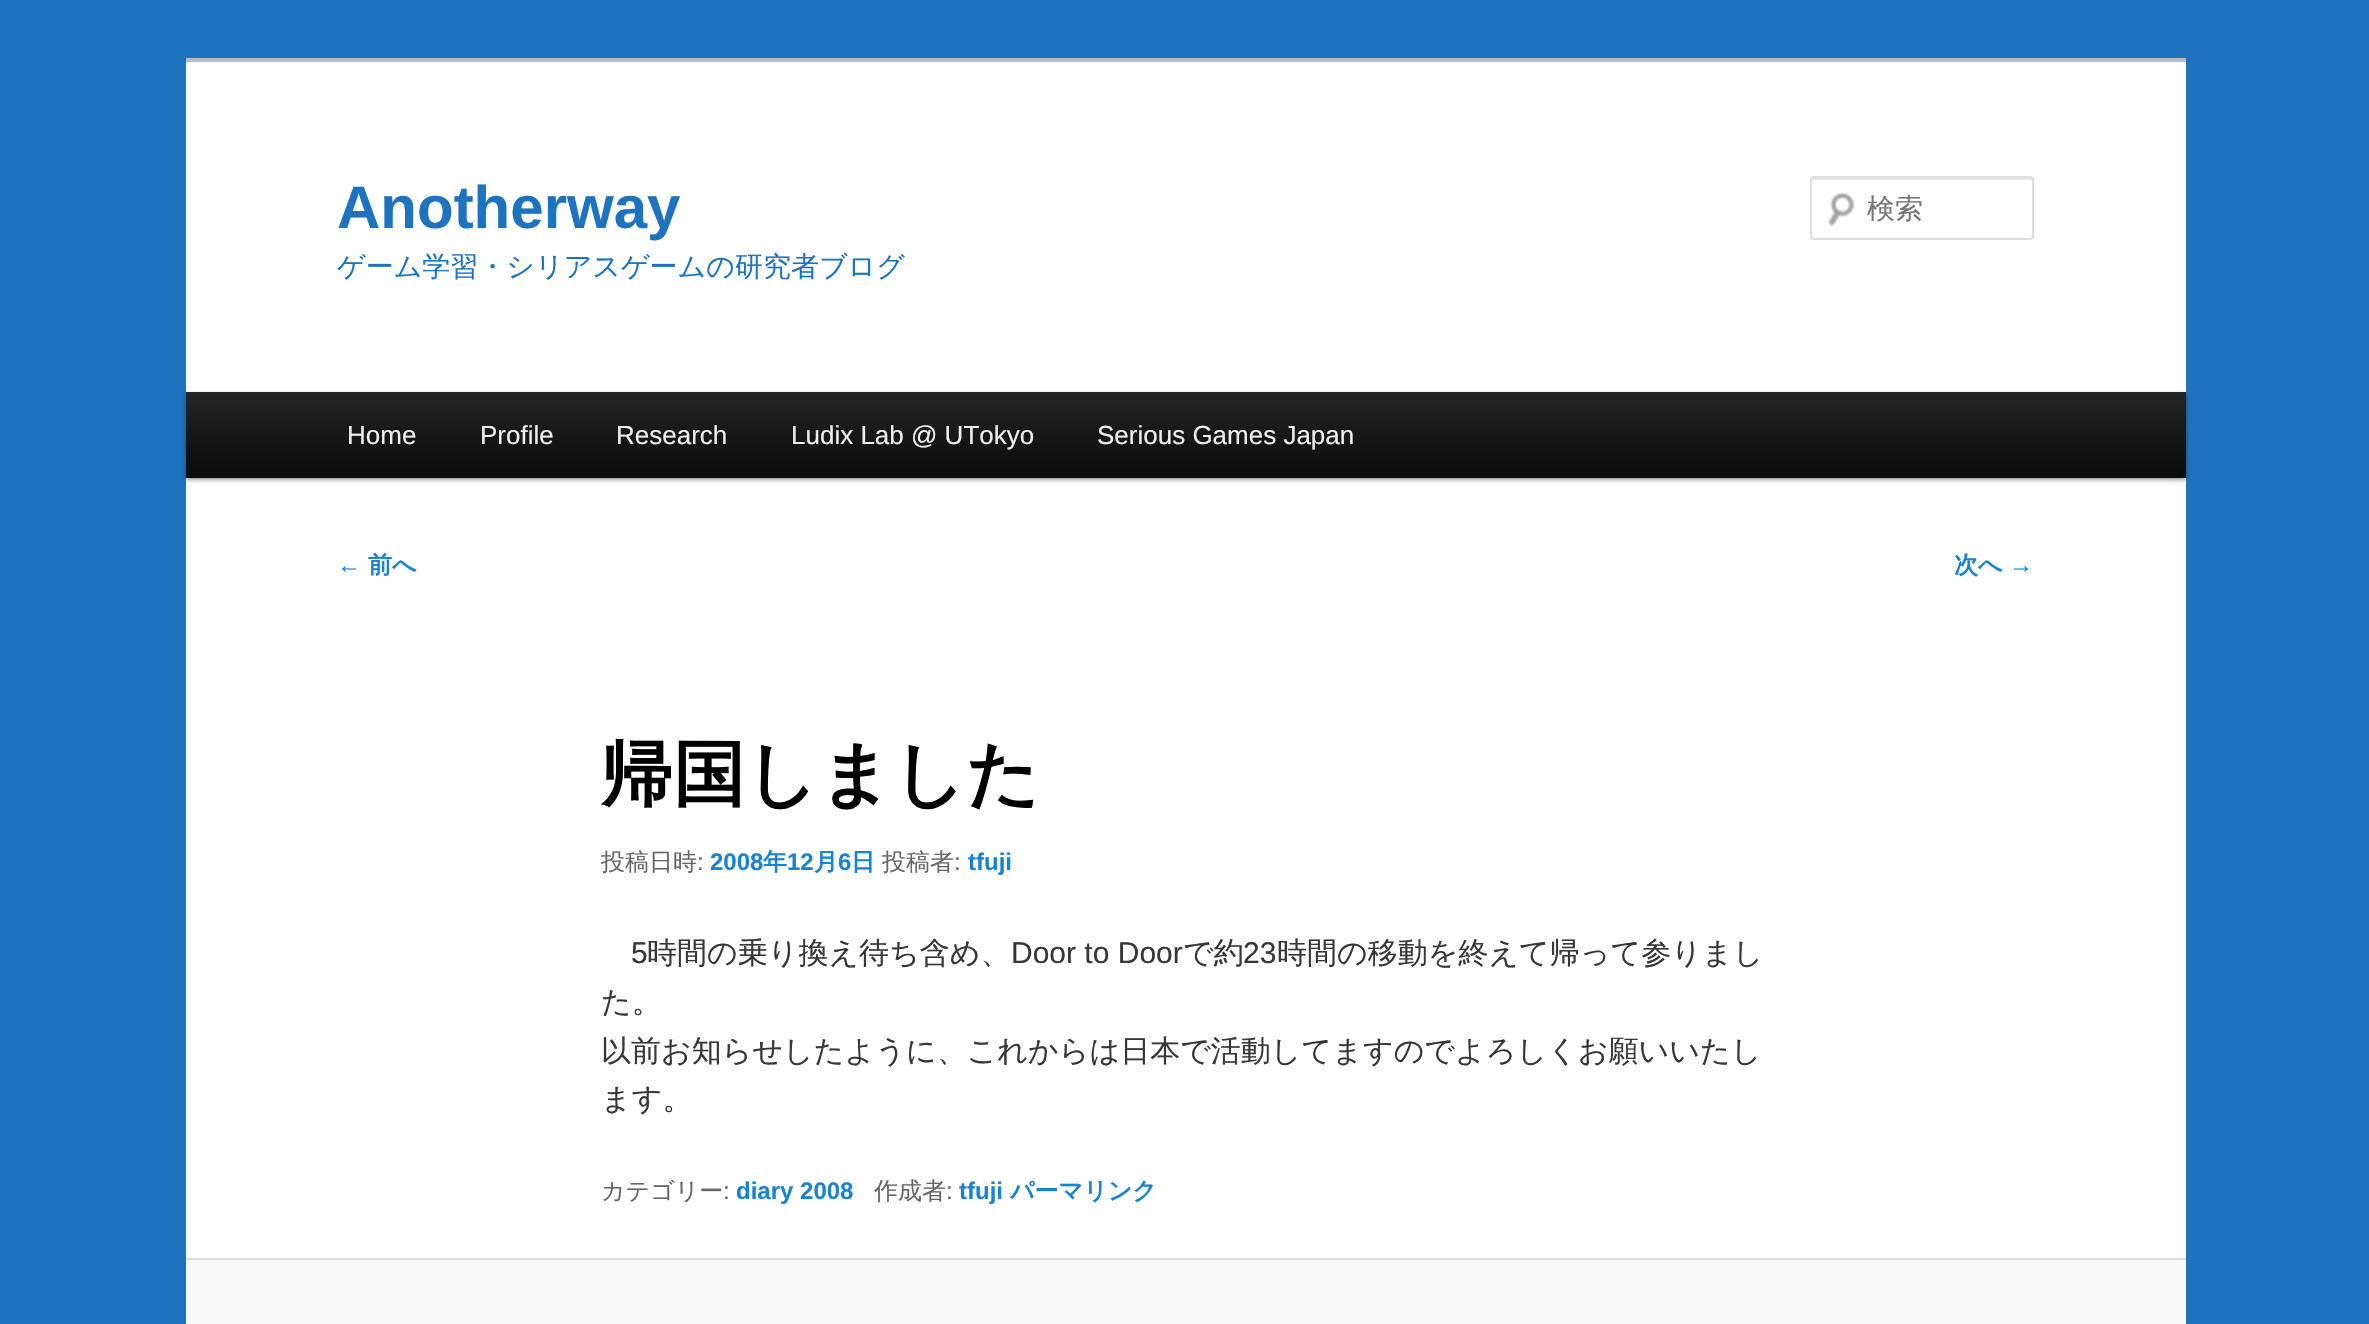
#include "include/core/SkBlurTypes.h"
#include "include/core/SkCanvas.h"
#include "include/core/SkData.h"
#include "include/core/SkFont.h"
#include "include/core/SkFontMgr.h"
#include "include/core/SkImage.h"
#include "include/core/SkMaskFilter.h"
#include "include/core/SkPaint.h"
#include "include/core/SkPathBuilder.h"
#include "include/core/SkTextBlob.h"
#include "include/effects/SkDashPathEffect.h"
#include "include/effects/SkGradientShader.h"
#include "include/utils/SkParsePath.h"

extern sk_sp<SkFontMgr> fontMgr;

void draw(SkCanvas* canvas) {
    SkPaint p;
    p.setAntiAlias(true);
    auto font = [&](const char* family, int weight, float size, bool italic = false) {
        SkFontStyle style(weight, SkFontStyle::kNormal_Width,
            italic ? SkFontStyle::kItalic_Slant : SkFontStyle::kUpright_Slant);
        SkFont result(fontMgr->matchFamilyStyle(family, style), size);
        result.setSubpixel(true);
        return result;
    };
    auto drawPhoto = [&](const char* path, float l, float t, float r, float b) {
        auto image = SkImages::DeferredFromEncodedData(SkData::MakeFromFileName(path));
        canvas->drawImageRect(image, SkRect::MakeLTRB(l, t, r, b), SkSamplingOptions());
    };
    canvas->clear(0xFF1E73BE);
    p.setColor(0xFFFFFFFF);
    canvas->drawRect(SkRect::MakeLTRB(186, 62, 2186, 1258), p);
    p.setColor(0xFFBBBBBB);
    canvas->drawRect(SkRect::MakeLTRB(186, 58, 2186, 62), p);
    auto font1 = font("Liberation Sans", 700, 60);
    p.setColor(0xFF1E73BE);
    canvas->drawString("Anotherway", 337, 228, font1, p);
    auto font2 = font("WenQuanYi Zen Hei", 500, 28);
    canvas->drawString("ゲーム学習・シリアスゲームの研究者ブログ", 337, 276, font2, p);
    drawPhoto("media/1.png", 1827, 192, 1855, 227);
    p.setColor(0xFFE6E6E6);
    canvas->drawPath(SkPathBuilder().moveTo(1814, 180).lineTo(2030, 180).cubicTo(2031, 180, 2032, 181, 2032, 182).lineTo(2032, 180).cubicTo(2032, 179, 2031, 178, 2030, 178).lineTo(1814, 178).cubicTo(1813, 178, 1812, 179, 1812, 180).lineTo(1812, 182).cubicTo(1812, 181, 1813, 180, 1814, 180).close().detach(), p);
    p.setStyle(SkPaint::kStroke_Style);
    p.setStrokeWidth(2);
    p.setColor(0xFFDDDDDD);
    canvas->drawRoundRect(SkRect::MakeLTRB(1811, 177, 2033, 239), 3, 3, p);
    p.setStyle(SkPaint::kFill_Style);
    p.setColor(0xFF757575);
    canvas->drawString("検索", 1867, 218, font2, p);
    p.setColor(0x66000000);
    p.setMaskFilter(SkMaskFilter::MakeBlur(kNormal_SkBlurStyle, 2));
    canvas->drawRect(SkRect::MakeLTRB(186, 394, 2186, 480), p);
    p.setMaskFilter(nullptr);
    {
        const SkColor colors[] = {0xFF252525, 0xFF0A0A0A};
        const float stops[] = {0, 1};
        const SkPoint ends[] = {{1186, 392}, {1186, 478}};
        p.setShader(SkGradientShader::MakeLinear(ends, colors, stops, 2, SkTileMode::kClamp));
        p.setAlpha(255);
    }
    canvas->drawRect(SkRect::MakeLTRB(186, 392, 2186, 478), p);
    auto font3 = font("Liberation Sans", 400, 26);
    p.setShader(nullptr);
    p.setColor(0xFFEEEEEE);
    {
        const struct { const char* s; float x, y; } items[] = {
            {"Home", 347, 444},
            {"Profile", 480, 444},
            {"Research", 616, 444},
            {"Ludix Lab @ UTokyo", 791, 444},
            {"Serious Games Japan", 1097, 444},
        };
        for (auto [s, x, y] : items) {
            canvas->drawString(s, x, y, font3, p);
        }
    }
    auto font4 = font("Liberation Sans", 400, 24);
    p.setColor(0xFF1982D1);
    canvas->drawString("←", 337, 573, font4, p);
    auto font5 = font("WenQuanYi Zen Hei", 700, 24);
    canvas->drawString("前へ", 368, 573, font5, p);
    canvas->drawString("次へ", 1954, 573, font5, p);
    canvas->drawString("→", 2009, 573, font4, p);
    auto font6 = font("WenQuanYi Zen Hei", 700, 72);
    p.setColor(0xFF000000);
    canvas->drawString("帰国しました", 601, 799, font6, p);
    auto font7 = font("WenQuanYi Zen Hei", 500, 24);
    p.setColor(0xFF666666);
    canvas->drawString("投稿日時", 601, 870, font7, p);
    canvas->drawString(":", 697, 870, font4, p);
    auto font8 = font("Liberation Sans", 700, 24);
    p.setColor(0xFF1982D1);
    canvas->drawString("2008", 710, 870, font8, p);
    canvas->drawString("年", 763, 870, font5, p);
    canvas->drawString("12", 787, 870, font8, p);
    canvas->drawString("月", 814, 870, font5, p);
    canvas->drawString("6", 838, 870, font8, p);
    canvas->drawString("日", 851, 870, font5, p);
    p.setColor(0xFF666666);
    canvas->drawString("投稿者", 882, 870, font7, p);
    canvas->drawString(":", 954, 870, font4, p);
    p.setColor(0xFF1982D1);
    canvas->drawString("tfuji", 968, 870, font8, p);
    auto font9 = font("Liberation Sans", 400, 30);
    p.setColor(0xFF373737);
    canvas->drawString("5", 631, 963, font9, p);
    auto font10 = font("WenQuanYi Zen Hei", 500, 30);
    canvas->drawString("時間の乗り換え待ち含め、", 647, 963, font10, p);
    canvas->drawString("Door to Door", 1011, 963, font9, p);
    canvas->drawString("で約", 1183, 963, font10, p);
    canvas->drawString("23", 1243, 963, font9, p);
    {
        const struct { const char* s; float x, y; } items[] = {
            {"時間の移動を終えて帰って参りまし", 1277, 963},
            {"た。", 601, 1012},
            {"以前お知らせしたように、これからは日本で活動してますのでよろしくお願いいたし", 601, 1061},
            {"ます。", 601, 1109},
        };
        for (auto [s, x, y] : items) {
            canvas->drawString(s, x, y, font10, p);
        }
    }
    p.setColor(0xFF666666);
    canvas->drawString("カテゴリー", 601, 1199, font7, p);
    canvas->drawString(":", 723, 1199, font4, p);
    p.setColor(0xFF1982D1);
    canvas->drawString("diary 2008", 736, 1199, font8, p);
    p.setColor(0xFF666666);
    canvas->drawString("作成者", 874, 1199, font7, p);
    canvas->drawString(":", 946, 1199, font4, p);
    p.setColor(0xFF1982D1);
    canvas->drawString("tfuji", 959, 1199, font8, p);
    canvas->drawString("パーマリンク", 1010, 1199, font5, p);
    p.setColor(0xFFF9F9F9);
    canvas->drawRect(SkRect::MakeLTRB(186, 1260, 2186, 1324), p);
    p.setColor(0xFFDDDDDD);
    canvas->drawRect(SkRect::MakeLTRB(186, 1258, 2186, 1260), p);
}
